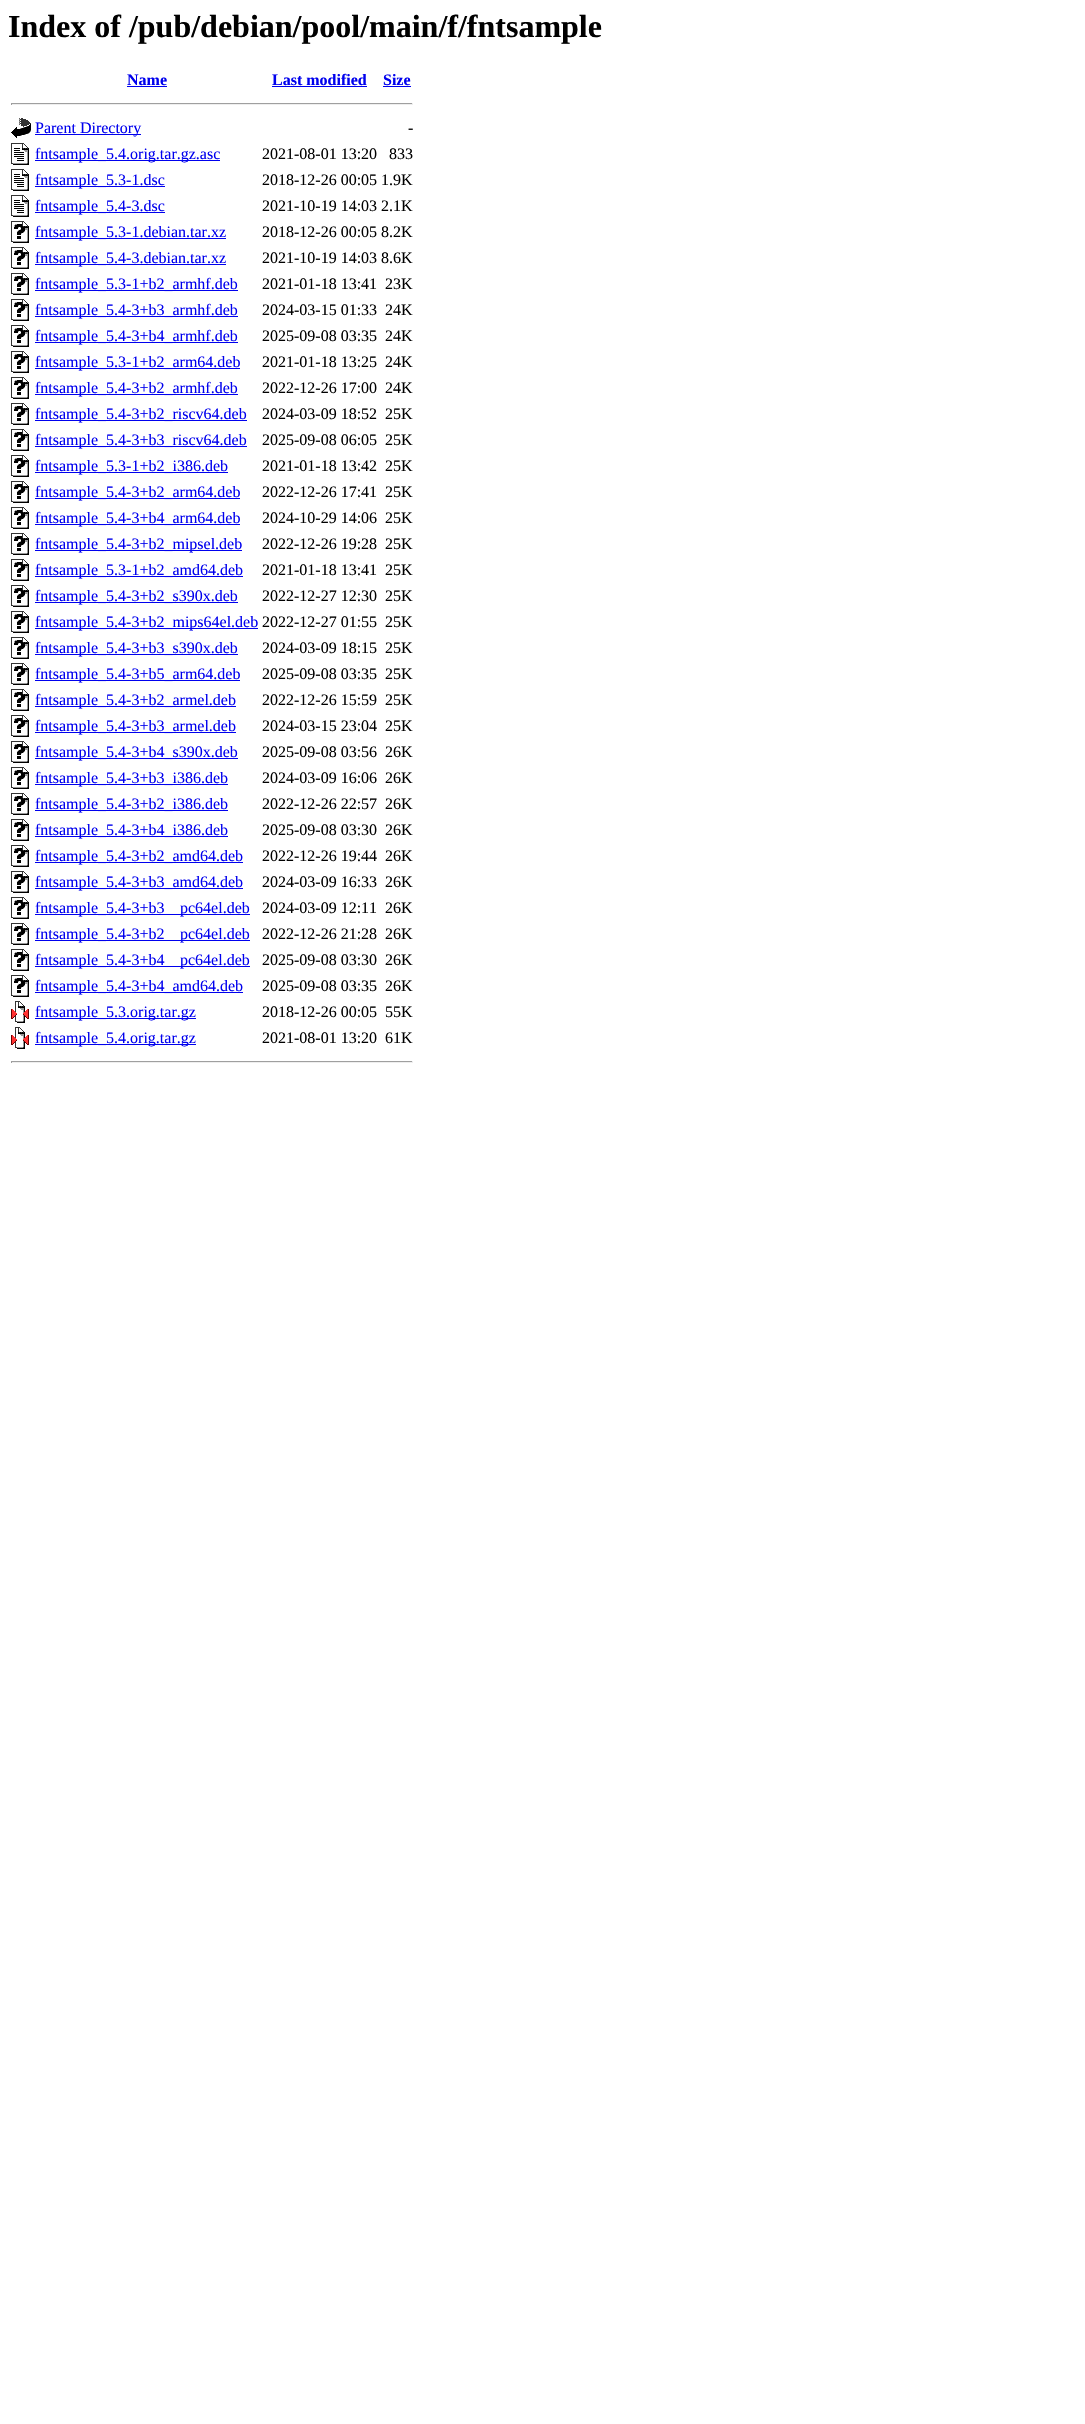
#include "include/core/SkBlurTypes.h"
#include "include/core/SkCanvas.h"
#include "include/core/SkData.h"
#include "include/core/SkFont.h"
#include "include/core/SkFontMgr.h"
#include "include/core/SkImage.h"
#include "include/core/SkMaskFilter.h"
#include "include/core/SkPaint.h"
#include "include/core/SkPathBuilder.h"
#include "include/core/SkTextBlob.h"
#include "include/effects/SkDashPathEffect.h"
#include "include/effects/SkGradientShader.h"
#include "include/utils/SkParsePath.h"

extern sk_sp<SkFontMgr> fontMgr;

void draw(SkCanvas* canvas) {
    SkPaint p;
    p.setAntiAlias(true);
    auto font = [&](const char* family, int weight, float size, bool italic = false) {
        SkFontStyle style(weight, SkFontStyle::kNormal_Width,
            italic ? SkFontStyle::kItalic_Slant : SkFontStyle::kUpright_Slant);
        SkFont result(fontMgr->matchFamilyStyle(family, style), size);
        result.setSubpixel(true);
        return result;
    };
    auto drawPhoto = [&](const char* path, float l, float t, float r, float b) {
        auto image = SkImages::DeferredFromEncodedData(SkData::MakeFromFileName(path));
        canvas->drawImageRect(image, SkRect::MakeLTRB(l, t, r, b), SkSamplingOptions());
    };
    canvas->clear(0xFFFFFFFF);
    auto font1 = font("Liberation Serif", 700, 32);
    p.setColor(0xFF000000);
    canvas->drawString("Index of /pub/debian/pool/main/f/fntsample", 8, 37, font1, p);
    auto font2 = font("Liberation Serif", 700, 16);
    p.setColor(0xFF0000EE);
    canvas->drawString("Name", 127, 85, font2, p);
    canvas->drawRect(SkRect::MakeLTRB(127, 86, 167, 87), p);
    canvas->drawString("Last modified", 272, 85, font2, p);
    canvas->drawRect(SkRect::MakeLTRB(272, 86, 367, 87), p);
    canvas->drawString("Size", 383, 85, font2, p);
    {
        const struct { float l, t, r, b; SkColor color; } items[] = {
            {383, 86, 411, 87, 0xFF0000EE},
            {11, 103, 413, 104, 0xFF9F9F9F},
            {412, 103, 413, 105, 0xFFEEEEEE},
            {11, 104, 413, 105, 0xFFEEEEEE},
            {11, 103, 12, 105, 0xFF9F9F9F},
        };
        for (auto [l, t, r, b, color] : items) {
            p.setColor(color);
            canvas->drawRect(SkRect::MakeLTRB(l, t, r, b), p);
        }
    }
    drawPhoto("media/1.png", 11, 118, 31, 138);
    p.setColor(0xFF0000EE);
    canvas->drawRect(SkRect::MakeLTRB(35, 134, 141, 135), p);
    auto font3 = font("Liberation Serif", 400, 16);
    canvas->drawString("Parent Directory", 35, 133, font3, p);
    p.setColor(0xFF000000);
    canvas->drawString("-", 408, 133, font3, p);
    drawPhoto("media/2.png", 11, 143, 29, 165);
    p.setColor(0xFF0000EE);
    canvas->drawRect(SkRect::MakeLTRB(35, 160, 220, 161), p);
    canvas->drawString("fntsample_5.4.orig.tar.gz.asc", 35, 159, font3, p);
    p.setColor(0xFF000000);
    canvas->drawString("2021-08-01 13:20", 262, 159, font3, p);
    canvas->drawString("833", 389, 159, font3, p);
    drawPhoto("media/2.png", 11, 169, 29, 191);
    p.setColor(0xFF0000EE);
    canvas->drawRect(SkRect::MakeLTRB(35, 186, 165, 187), p);
    canvas->drawString("fntsample_5.3-1.dsc", 35, 185, font3, p);
    p.setColor(0xFF000000);
    canvas->drawString("2018-12-26 00:05 1.9K", 262, 185, font3, p);
    drawPhoto("media/2.png", 11, 195, 29, 217);
    p.setColor(0xFF0000EE);
    canvas->drawRect(SkRect::MakeLTRB(35, 212, 165, 213), p);
    canvas->drawString("fntsample_5.4-3.dsc", 35, 211, font3, p);
    p.setColor(0xFF000000);
    canvas->drawString("2021-10-19 14:03 2.1K", 262, 211, font3, p);
    drawPhoto("media/3.png", 11, 221, 29, 243);
    p.setColor(0xFF0000EE);
    canvas->drawRect(SkRect::MakeLTRB(35, 238, 226, 239), p);
    canvas->drawString("fntsample_5.3-1.debian.tar.xz", 35, 237, font3, p);
    p.setColor(0xFF000000);
    canvas->drawString("2018-12-26 00:05 8.2K", 262, 237, font3, p);
    drawPhoto("media/3.png", 11, 247, 29, 269);
    p.setColor(0xFF0000EE);
    canvas->drawRect(SkRect::MakeLTRB(35, 264, 226, 265), p);
    canvas->drawString("fntsample_5.4-3.debian.tar.xz", 35, 263, font3, p);
    p.setColor(0xFF000000);
    canvas->drawString("2021-10-19 14:03 8.6K", 262, 263, font3, p);
    drawPhoto("media/3.png", 11, 273, 29, 295);
    p.setColor(0xFF0000EE);
    canvas->drawRect(SkRect::MakeLTRB(35, 290, 238, 291), p);
    canvas->drawString("fntsample_5.3-1+b2_armhf.deb", 35, 289, font3, p);
    p.setColor(0xFF000000);
    canvas->drawString("2021-01-18 13:41", 262, 289, font3, p);
    canvas->drawString("23K", 385, 289, font3, p);
    drawPhoto("media/3.png", 11, 299, 29, 321);
    p.setColor(0xFF0000EE);
    canvas->drawRect(SkRect::MakeLTRB(35, 316, 238, 317), p);
    canvas->drawString("fntsample_5.4-3+b3_armhf.deb", 35, 315, font3, p);
    p.setColor(0xFF000000);
    canvas->drawString("2024-03-15 01:33", 262, 315, font3, p);
    canvas->drawString("24K", 385, 315, font3, p);
    drawPhoto("media/3.png", 11, 325, 29, 347);
    p.setColor(0xFF0000EE);
    canvas->drawRect(SkRect::MakeLTRB(35, 342, 238, 343), p);
    canvas->drawString("fntsample_5.4-3+b4_armhf.deb", 35, 341, font3, p);
    p.setColor(0xFF000000);
    canvas->drawString("2025-09-08 03:35", 262, 341, font3, p);
    canvas->drawString("24K", 385, 341, font3, p);
    drawPhoto("media/3.png", 11, 351, 29, 373);
    p.setColor(0xFF0000EE);
    canvas->drawRect(SkRect::MakeLTRB(35, 368, 240, 369), p);
    canvas->drawString("fntsample_5.3-1+b2_arm64.deb", 35, 367, font3, p);
    p.setColor(0xFF000000);
    canvas->drawString("2021-01-18 13:25", 262, 367, font3, p);
    canvas->drawString("24K", 385, 367, font3, p);
    drawPhoto("media/3.png", 11, 377, 29, 399);
    p.setColor(0xFF0000EE);
    canvas->drawRect(SkRect::MakeLTRB(35, 394, 238, 395), p);
    canvas->drawString("fntsample_5.4-3+b2_armhf.deb", 35, 393, font3, p);
    p.setColor(0xFF000000);
    canvas->drawString("2022-12-26 17:00", 262, 393, font3, p);
    canvas->drawString("24K", 385, 393, font3, p);
    drawPhoto("media/3.png", 11, 403, 29, 425);
    p.setColor(0xFF0000EE);
    canvas->drawRect(SkRect::MakeLTRB(35, 420, 247, 421), p);
    canvas->drawString("fntsample_5.4-3+b2_riscv64.deb", 35, 419, font3, p);
    p.setColor(0xFF000000);
    canvas->drawString("2024-03-09 18:52", 262, 419, font3, p);
    canvas->drawString("25K", 385, 419, font3, p);
    drawPhoto("media/3.png", 11, 429, 29, 451);
    p.setColor(0xFF0000EE);
    canvas->drawRect(SkRect::MakeLTRB(35, 446, 247, 447), p);
    canvas->drawString("fntsample_5.4-3+b3_riscv64.deb", 35, 445, font3, p);
    p.setColor(0xFF000000);
    canvas->drawString("2025-09-08 06:05", 262, 445, font3, p);
    canvas->drawString("25K", 385, 445, font3, p);
    drawPhoto("media/3.png", 11, 455, 29, 477);
    p.setColor(0xFF0000EE);
    canvas->drawRect(SkRect::MakeLTRB(35, 472, 228, 473), p);
    canvas->drawString("fntsample_5.3-1+b2_i386.deb", 35, 471, font3, p);
    p.setColor(0xFF000000);
    canvas->drawString("2021-01-18 13:42", 262, 471, font3, p);
    canvas->drawString("25K", 385, 471, font3, p);
    drawPhoto("media/3.png", 11, 481, 29, 503);
    p.setColor(0xFF0000EE);
    canvas->drawRect(SkRect::MakeLTRB(35, 498, 240, 499), p);
    canvas->drawString("fntsample_5.4-3+b2_arm64.deb", 35, 497, font3, p);
    p.setColor(0xFF000000);
    canvas->drawString("2022-12-26 17:41", 262, 497, font3, p);
    canvas->drawString("25K", 385, 497, font3, p);
    drawPhoto("media/3.png", 11, 507, 29, 529);
    p.setColor(0xFF0000EE);
    canvas->drawRect(SkRect::MakeLTRB(35, 524, 240, 525), p);
    canvas->drawString("fntsample_5.4-3+b4_arm64.deb", 35, 523, font3, p);
    p.setColor(0xFF000000);
    canvas->drawString("2024-10-29 14:06", 262, 523, font3, p);
    canvas->drawString("25K", 385, 523, font3, p);
    drawPhoto("media/3.png", 11, 533, 29, 555);
    p.setColor(0xFF0000EE);
    canvas->drawRect(SkRect::MakeLTRB(35, 550, 242, 551), p);
    canvas->drawString("fntsample_5.4-3+b2_mipsel.deb", 35, 549, font3, p);
    p.setColor(0xFF000000);
    canvas->drawString("2022-12-26 19:28", 262, 549, font3, p);
    canvas->drawString("25K", 385, 549, font3, p);
    drawPhoto("media/3.png", 11, 559, 29, 581);
    p.setColor(0xFF0000EE);
    canvas->drawRect(SkRect::MakeLTRB(35, 576, 243, 577), p);
    canvas->drawString("fntsample_5.3-1+b2_amd64.deb", 35, 575, font3, p);
    p.setColor(0xFF000000);
    canvas->drawString("2021-01-18 13:41", 262, 575, font3, p);
    canvas->drawString("25K", 385, 575, font3, p);
    drawPhoto("media/3.png", 11, 585, 29, 607);
    p.setColor(0xFF0000EE);
    canvas->drawRect(SkRect::MakeLTRB(35, 602, 238, 603), p);
    canvas->drawString("fntsample_5.4-3+b2_s390x.deb", 35, 601, font3, p);
    p.setColor(0xFF000000);
    canvas->drawString("2022-12-27 12:30", 262, 601, font3, p);
    canvas->drawString("25K", 385, 601, font3, p);
    drawPhoto("media/3.png", 11, 611, 29, 633);
    p.setColor(0xFF0000EE);
    canvas->drawRect(SkRect::MakeLTRB(35, 628, 258, 629), p);
    canvas->drawString("fntsample_5.4-3+b2_mips64el.deb", 35, 627, font3, p);
    p.setColor(0xFF000000);
    canvas->drawString("2022-12-27 01:55", 262, 627, font3, p);
    canvas->drawString("25K", 385, 627, font3, p);
    drawPhoto("media/3.png", 11, 637, 29, 659);
    p.setColor(0xFF0000EE);
    canvas->drawRect(SkRect::MakeLTRB(35, 654, 238, 655), p);
    canvas->drawString("fntsample_5.4-3+b3_s390x.deb", 35, 653, font3, p);
    p.setColor(0xFF000000);
    canvas->drawString("2024-03-09 18:15", 262, 653, font3, p);
    canvas->drawString("25K", 385, 653, font3, p);
    drawPhoto("media/3.png", 11, 663, 29, 685);
    p.setColor(0xFF0000EE);
    canvas->drawRect(SkRect::MakeLTRB(35, 680, 240, 681), p);
    canvas->drawString("fntsample_5.4-3+b5_arm64.deb", 35, 679, font3, p);
    p.setColor(0xFF000000);
    canvas->drawString("2025-09-08 03:35", 262, 679, font3, p);
    canvas->drawString("25K", 385, 679, font3, p);
    drawPhoto("media/3.png", 11, 689, 29, 711);
    p.setColor(0xFF0000EE);
    canvas->drawRect(SkRect::MakeLTRB(35, 706, 236, 707), p);
    canvas->drawString("fntsample_5.4-3+b2_armel.deb", 35, 705, font3, p);
    p.setColor(0xFF000000);
    canvas->drawString("2022-12-26 15:59", 262, 705, font3, p);
    canvas->drawString("25K", 385, 705, font3, p);
    drawPhoto("media/3.png", 11, 715, 29, 737);
    p.setColor(0xFF0000EE);
    canvas->drawRect(SkRect::MakeLTRB(35, 732, 236, 733), p);
    canvas->drawString("fntsample_5.4-3+b3_armel.deb", 35, 731, font3, p);
    p.setColor(0xFF000000);
    canvas->drawString("2024-03-15 23:04", 262, 731, font3, p);
    canvas->drawString("25K", 385, 731, font3, p);
    drawPhoto("media/3.png", 11, 741, 29, 763);
    p.setColor(0xFF0000EE);
    canvas->drawRect(SkRect::MakeLTRB(35, 758, 238, 759), p);
    canvas->drawString("fntsample_5.4-3+b4_s390x.deb", 35, 757, font3, p);
    p.setColor(0xFF000000);
    canvas->drawString("2025-09-08 03:56", 262, 757, font3, p);
    canvas->drawString("26K", 385, 757, font3, p);
    drawPhoto("media/3.png", 11, 767, 29, 789);
    p.setColor(0xFF0000EE);
    canvas->drawRect(SkRect::MakeLTRB(35, 784, 228, 785), p);
    canvas->drawString("fntsample_5.4-3+b3_i386.deb", 35, 783, font3, p);
    p.setColor(0xFF000000);
    canvas->drawString("2024-03-09 16:06", 262, 783, font3, p);
    canvas->drawString("26K", 385, 783, font3, p);
    drawPhoto("media/3.png", 11, 793, 29, 815);
    p.setColor(0xFF0000EE);
    canvas->drawRect(SkRect::MakeLTRB(35, 810, 228, 811), p);
    canvas->drawString("fntsample_5.4-3+b2_i386.deb", 35, 809, font3, p);
    p.setColor(0xFF000000);
    canvas->drawString("2022-12-26 22:57", 262, 809, font3, p);
    canvas->drawString("26K", 385, 809, font3, p);
    drawPhoto("media/3.png", 11, 819, 29, 841);
    p.setColor(0xFF0000EE);
    canvas->drawRect(SkRect::MakeLTRB(35, 836, 228, 837), p);
    canvas->drawString("fntsample_5.4-3+b4_i386.deb", 35, 835, font3, p);
    p.setColor(0xFF000000);
    canvas->drawString("2025-09-08 03:30", 262, 835, font3, p);
    canvas->drawString("26K", 385, 835, font3, p);
    drawPhoto("media/3.png", 11, 845, 29, 867);
    p.setColor(0xFF0000EE);
    canvas->drawRect(SkRect::MakeLTRB(35, 862, 243, 863), p);
    canvas->drawString("fntsample_5.4-3+b2_amd64.deb", 35, 861, font3, p);
    p.setColor(0xFF000000);
    canvas->drawString("2022-12-26 19:44", 262, 861, font3, p);
    canvas->drawString("26K", 385, 861, font3, p);
    drawPhoto("media/3.png", 11, 871, 29, 893);
    p.setColor(0xFF0000EE);
    canvas->drawRect(SkRect::MakeLTRB(35, 888, 243, 889), p);
    canvas->drawString("fntsample_5.4-3+b3_amd64.deb", 35, 887, font3, p);
    p.setColor(0xFF000000);
    canvas->drawString("2024-03-09 16:33", 262, 887, font3, p);
    canvas->drawString("26K", 385, 887, font3, p);
    drawPhoto("media/3.png", 11, 897, 29, 919);
    p.setColor(0xFF0000EE);
    canvas->drawRect(SkRect::MakeLTRB(35, 914, 250, 915), p);
    canvas->drawString("fntsample_5.4-3+b3", 35, 913, font3, p);
    canvas->drawString("pc64el.deb", 180, 913, font3, p);
    p.setColor(0xFF000000);
    canvas->drawString("2024-03-09 12:11", 262, 913, font3, p);
    canvas->drawString("26K", 385, 913, font3, p);
    drawPhoto("media/3.png", 11, 923, 29, 945);
    p.setColor(0xFF0000EE);
    canvas->drawRect(SkRect::MakeLTRB(35, 940, 250, 941), p);
    canvas->drawString("fntsample_5.4-3+b2", 35, 939, font3, p);
    canvas->drawString("pc64el.deb", 180, 939, font3, p);
    p.setColor(0xFF000000);
    canvas->drawString("2022-12-26 21:28", 262, 939, font3, p);
    canvas->drawString("26K", 385, 939, font3, p);
    drawPhoto("media/3.png", 11, 949, 29, 971);
    p.setColor(0xFF0000EE);
    canvas->drawRect(SkRect::MakeLTRB(35, 966, 250, 967), p);
    canvas->drawString("fntsample_5.4-3+b4", 35, 965, font3, p);
    canvas->drawString("pc64el.deb", 180, 965, font3, p);
    p.setColor(0xFF000000);
    canvas->drawString("2025-09-08 03:30", 262, 965, font3, p);
    canvas->drawString("26K", 385, 965, font3, p);
    drawPhoto("media/3.png", 11, 975, 29, 997);
    p.setColor(0xFF0000EE);
    canvas->drawRect(SkRect::MakeLTRB(35, 992, 243, 993), p);
    canvas->drawString("fntsample_5.4-3+b4_amd64.deb", 35, 991, font3, p);
    p.setColor(0xFF000000);
    canvas->drawString("2025-09-08 03:35", 262, 991, font3, p);
    canvas->drawString("26K", 385, 991, font3, p);
    drawPhoto("media/4.png", 11, 1001, 29, 1023);
    p.setColor(0xFF0000EE);
    canvas->drawRect(SkRect::MakeLTRB(35, 1018, 196, 1019), p);
    canvas->drawString("fntsample_5.3.orig.tar.gz", 35, 1017, font3, p);
    p.setColor(0xFF000000);
    canvas->drawString("2018-12-26 00:05", 262, 1017, font3, p);
    canvas->drawString("55K", 385, 1017, font3, p);
    drawPhoto("media/4.png", 11, 1027, 29, 1049);
    p.setColor(0xFF0000EE);
    canvas->drawRect(SkRect::MakeLTRB(35, 1044, 196, 1045), p);
    canvas->drawString("fntsample_5.4.orig.tar.gz", 35, 1043, font3, p);
    p.setColor(0xFF000000);
    canvas->drawString("2021-08-01 13:20", 262, 1043, font3, p);
    canvas->drawString("61K", 385, 1043, font3, p);
    {
        const struct { float l, t, r, b; SkColor color; } items[] = {
            {11, 1061, 413, 1062, 0xFF9F9F9F},
            {412, 1061, 413, 1063, 0xFFEEEEEE},
            {11, 1062, 413, 1063, 0xFFEEEEEE},
            {11, 1061, 12, 1063, 0xFF9F9F9F},
        };
        for (auto [l, t, r, b, color] : items) {
            p.setColor(color);
            canvas->drawRect(SkRect::MakeLTRB(l, t, r, b), p);
        }
    }
}
